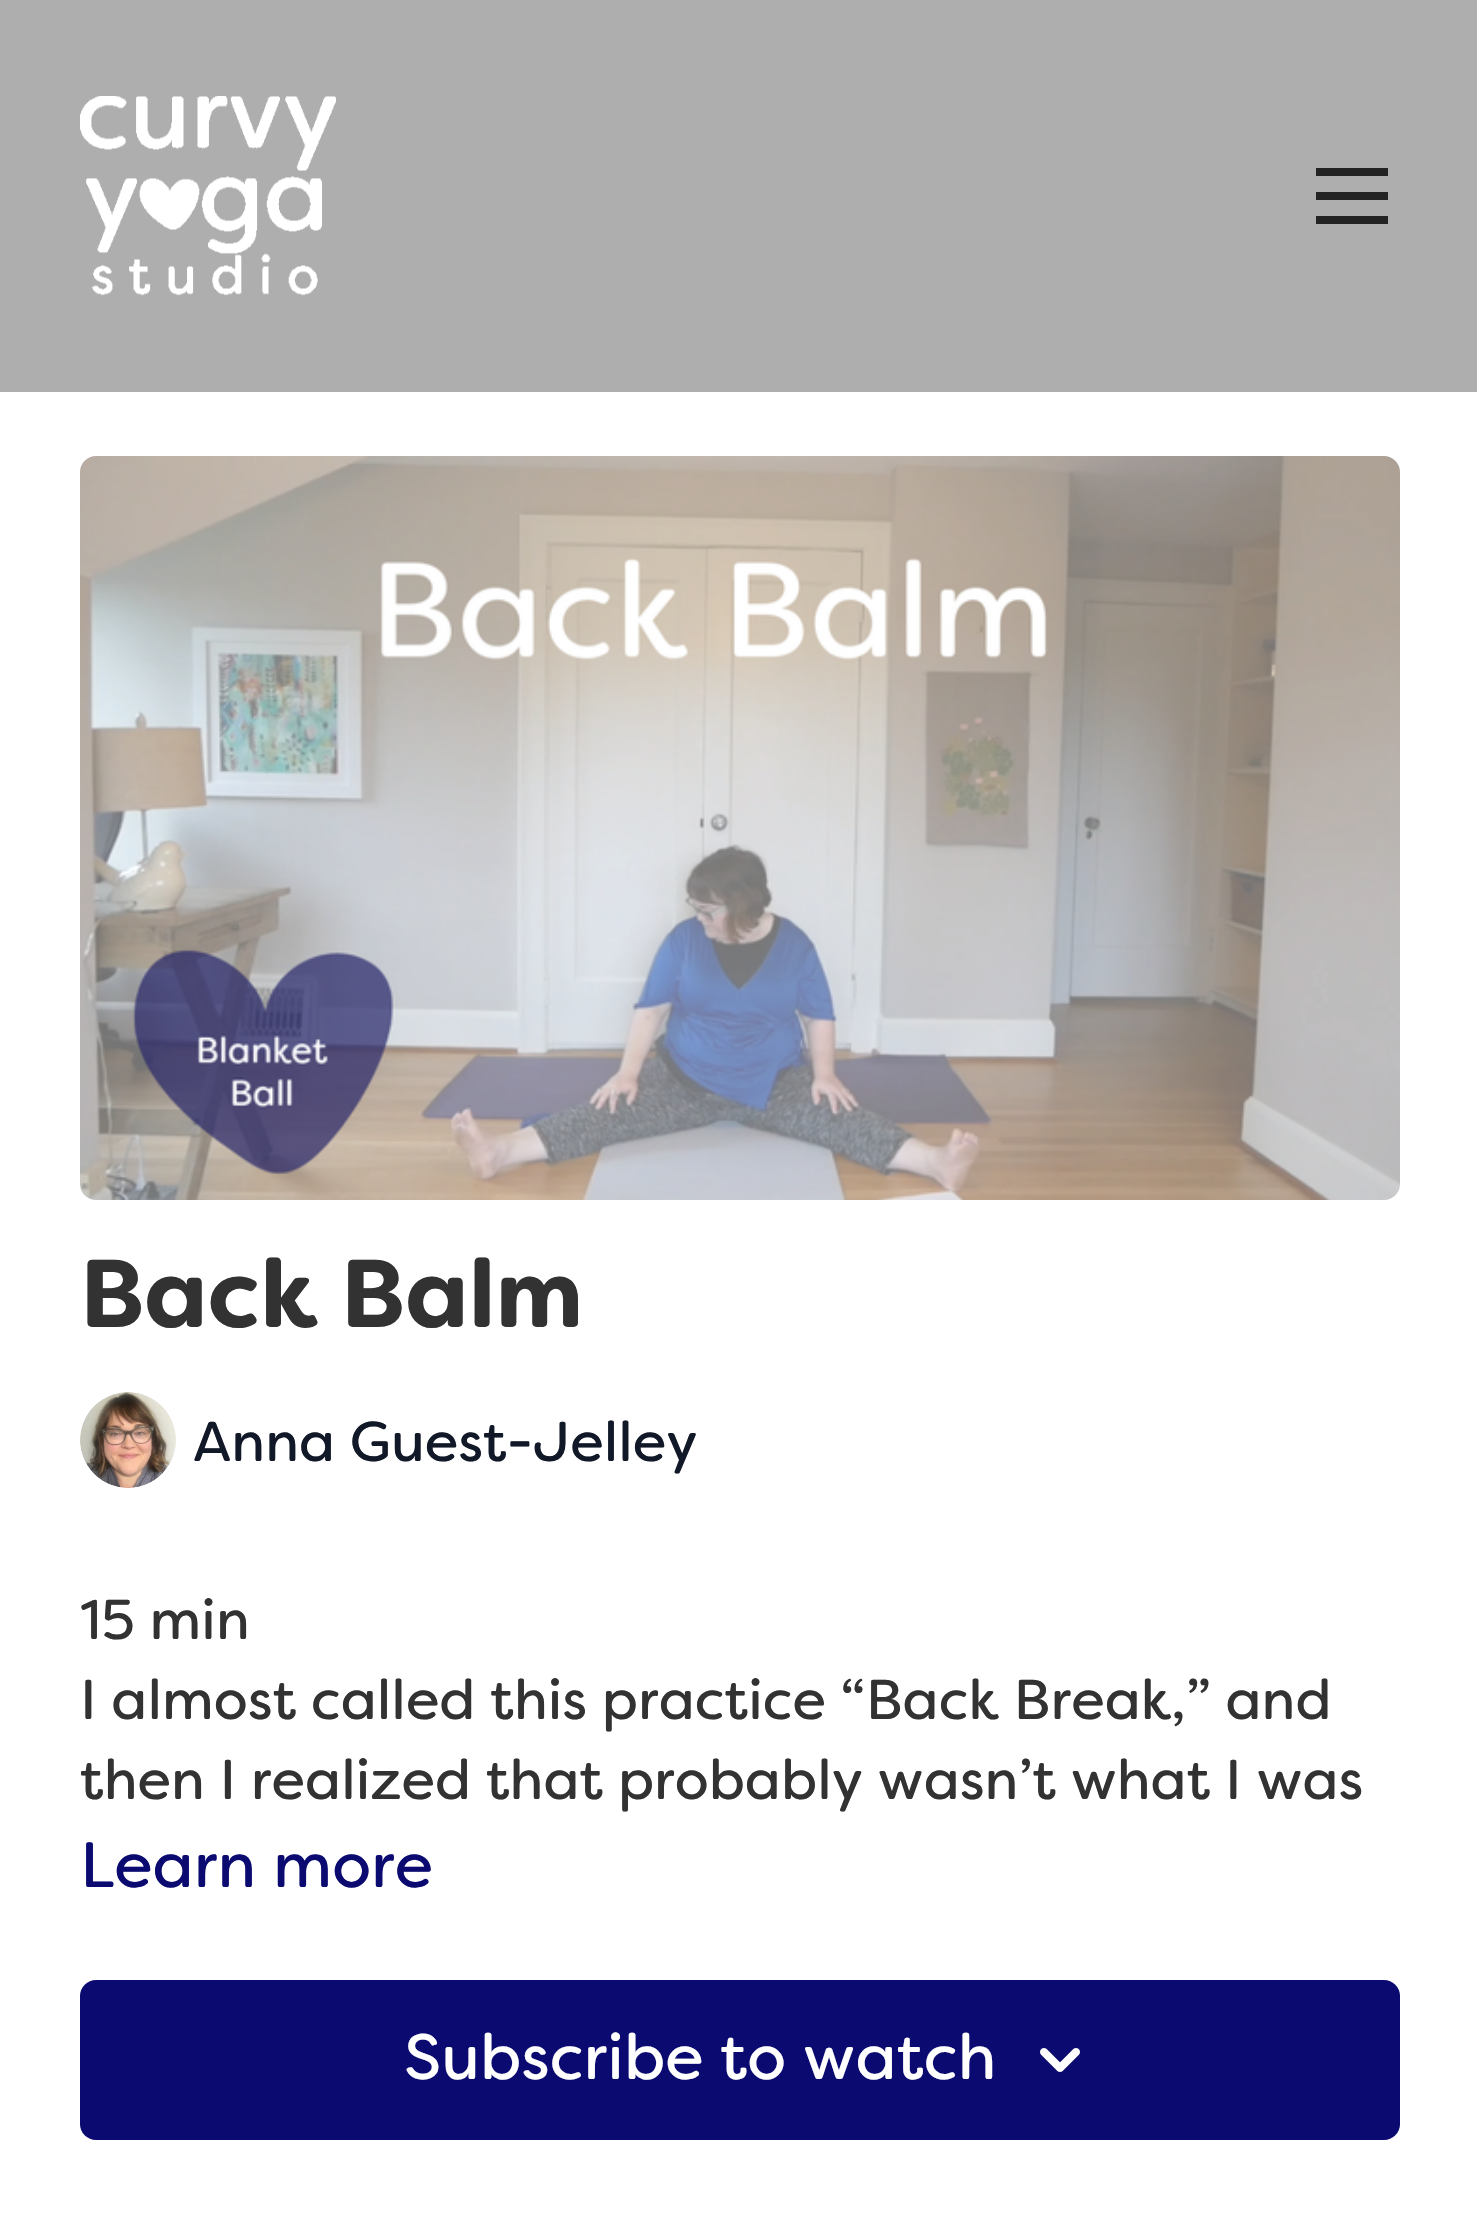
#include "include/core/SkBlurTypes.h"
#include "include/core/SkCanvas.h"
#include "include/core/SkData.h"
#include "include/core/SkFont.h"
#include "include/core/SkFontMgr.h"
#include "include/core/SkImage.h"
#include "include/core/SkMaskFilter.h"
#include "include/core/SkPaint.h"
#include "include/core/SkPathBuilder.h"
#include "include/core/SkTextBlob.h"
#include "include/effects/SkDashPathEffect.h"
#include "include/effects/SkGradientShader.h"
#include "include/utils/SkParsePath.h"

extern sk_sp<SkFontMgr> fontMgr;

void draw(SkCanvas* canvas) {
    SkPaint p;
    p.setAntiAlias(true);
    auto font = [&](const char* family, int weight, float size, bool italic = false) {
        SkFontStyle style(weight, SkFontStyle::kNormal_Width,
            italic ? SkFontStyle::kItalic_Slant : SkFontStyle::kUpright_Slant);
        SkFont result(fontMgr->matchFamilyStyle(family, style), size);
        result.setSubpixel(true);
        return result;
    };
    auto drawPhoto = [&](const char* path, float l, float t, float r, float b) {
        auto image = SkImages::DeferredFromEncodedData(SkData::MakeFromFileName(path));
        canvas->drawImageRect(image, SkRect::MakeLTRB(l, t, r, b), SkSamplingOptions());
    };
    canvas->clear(0xFFFFFFFF);
    p.setColor(0xFFAEAEAE);
    canvas->drawRect(SkRect::MakeLTRB(0, 0, 1477, 392), p);
    drawPhoto("media/1.png", 80, 96, 336, 296);
    p.setColor(0xFF232323);
    canvas->drawPath(SkPathBuilder().moveTo(1388, 176).lineTo(1316, 176).lineTo(1316, 168).lineTo(1388, 168).close().moveTo(1388, 200).lineTo(1316, 200).lineTo(1316, 192).lineTo(1388, 192).close().moveTo(1316, 224).lineTo(1388, 224).lineTo(1388, 216).lineTo(1316, 216).close().detach(), p);
    drawPhoto("media/2.png", 80, 456, 1400, 1200);
    auto font1 = font("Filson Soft", 700, 96);
    p.setColor(0xFF323232);
    canvas->drawString("Back Balm", 80, 1327, font1, p);
    drawPhoto("media/3.png", 80, 1392, 176, 1488);
    auto font2 = font("Filson Soft", 400, 56);
    p.setColor(0xFF111827);
    canvas->drawString("Anna Guest-Jelley", 193, 1461, font2, p);
    p.setColor(0xFF323232);
    {
        const struct { const char* s; float x, y; } items[] = {
            {"15 min", 80, 1639},
            {"I almost called this practice “Back Break,” and", 80, 1719},
            {"then I realized that probably wasn’t what I was", 80, 1799},
        };
        for (auto [s, x, y] : items) {
            canvas->drawString(s, x, y, font2, p);
        }
    }
    auto font3 = font("Filson Soft", 400, 64);
    p.setColor(0xFF0A0A70);
    canvas->drawString("Learn more", 80, 1887, font3, p);
    canvas->drawRoundRect(SkRect::MakeLTRB(80, 1980, 1400, 2140), 16, 16, p);
    p.setColor(0xFFFFFFFF);
    canvas->drawString("Subscribe to watch", 404, 2079, font3, p);
    drawPhoto("media/4.png", 1040, 2048, 1080, 2072);
}
